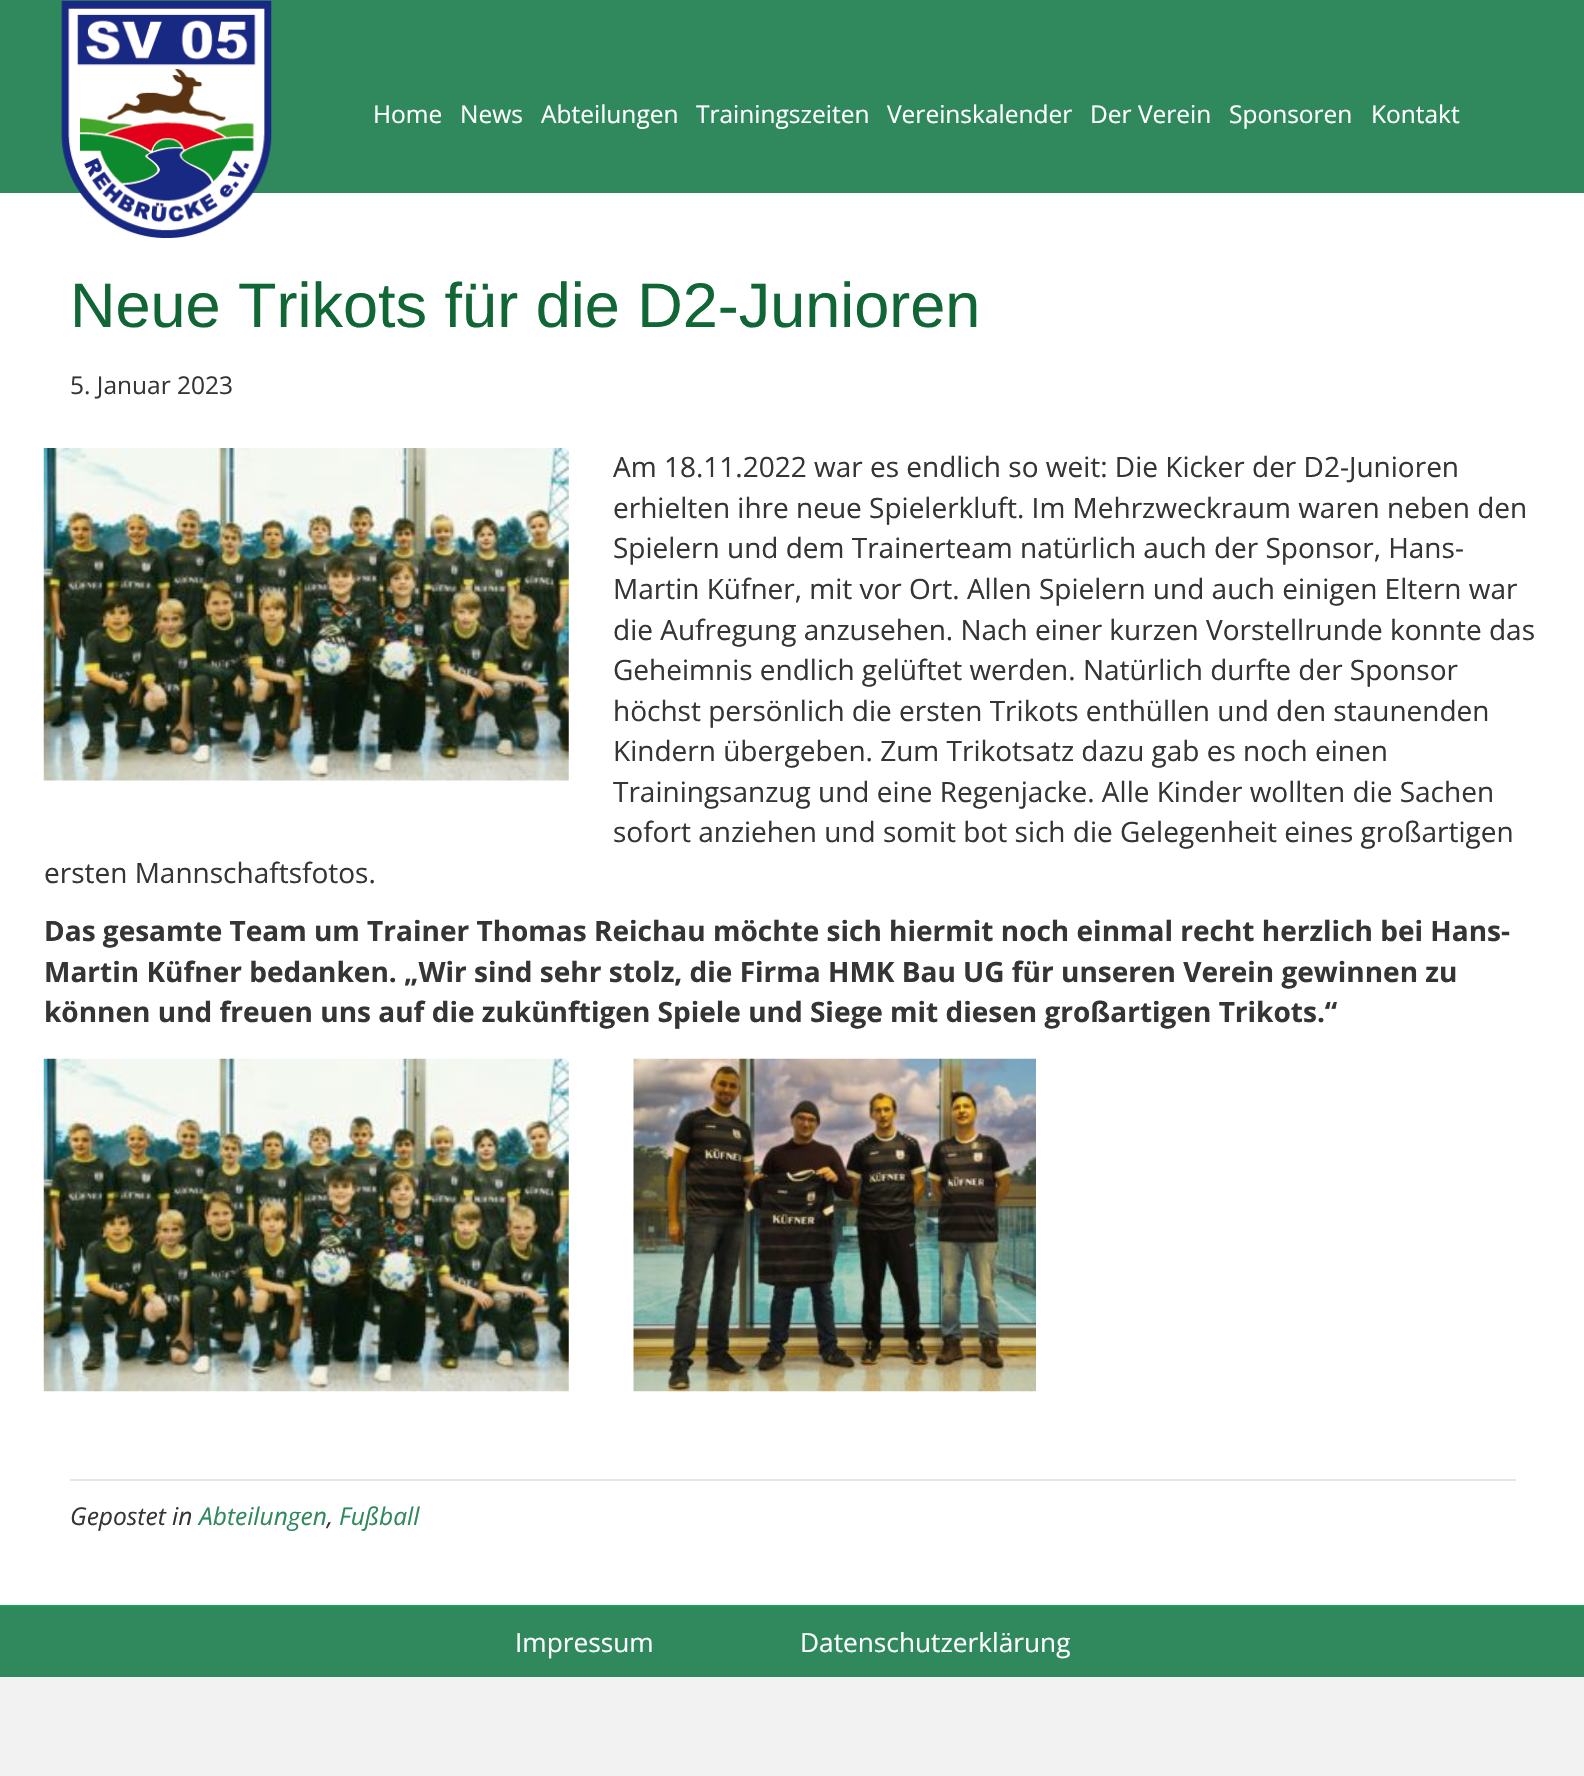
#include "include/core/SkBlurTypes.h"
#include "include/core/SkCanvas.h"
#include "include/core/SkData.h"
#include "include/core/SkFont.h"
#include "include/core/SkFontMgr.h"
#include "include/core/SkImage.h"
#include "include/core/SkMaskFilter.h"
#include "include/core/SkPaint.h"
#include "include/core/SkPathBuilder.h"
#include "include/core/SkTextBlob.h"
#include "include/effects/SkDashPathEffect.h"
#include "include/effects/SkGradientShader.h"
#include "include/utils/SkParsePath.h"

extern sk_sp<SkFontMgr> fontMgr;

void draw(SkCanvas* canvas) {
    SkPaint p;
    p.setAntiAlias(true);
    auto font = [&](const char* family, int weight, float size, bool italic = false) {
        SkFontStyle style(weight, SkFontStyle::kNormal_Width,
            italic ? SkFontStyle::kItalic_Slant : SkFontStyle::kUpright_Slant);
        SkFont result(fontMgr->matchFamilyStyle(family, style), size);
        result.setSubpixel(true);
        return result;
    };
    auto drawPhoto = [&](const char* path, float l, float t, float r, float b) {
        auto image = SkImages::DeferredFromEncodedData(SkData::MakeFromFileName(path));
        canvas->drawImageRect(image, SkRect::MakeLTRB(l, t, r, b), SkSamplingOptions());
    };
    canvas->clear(0xFFF2F2F2);
    p.setColor(0xFF30895D);
    canvas->drawRect(SkRect::MakeLTRB(0, 0, 1584, 193), p);
    p.setColor(0xFFFFFFFF);
    canvas->drawRect(SkRect::MakeLTRB(0, 193, 1584, 1605), p);
    drawPhoto("media/1.png", 61, 0, 272, 238);
    auto font1 = font("Open Sans", 400, 24.5f);
    {
        const struct { const char* s; float x, y; } items[] = {
            {"Home", 373, 123},
            {"News", 460, 123},
            {"Abteilungen", 541, 123},
            {"Trainingszeiten", 696, 123},
            {"Vereinskalender", 887, 123},
            {"Der Verein", 1090, 123},
            {"Sponsoren", 1229, 123},
            {"Kontakt", 1371, 123},
        };
        for (auto [s, x, y] : items) {
            canvas->drawString(s, x, y, font1, p);
        }
    }
    auto font2 = font("Liberation Sans", 400, 63);
    p.setColor(0xFF116635);
    canvas->drawString("Neue Trikots für die D2-Junioren", 70, 327, font2, p);
    p.setColor(0xFF353535);
    canvas->drawString("5. Januar 2023", 70, 394, font1, p);
    drawPhoto("media/2.png", 43, 448, 569, 781);
    auto font3 = font("Open Sans", 400, 28);
    {
        const struct { const char* s; float x, y; } items[] = {
            {"Am 18.11.2022 war es endlich so weit: Die Kicker der D2-Junioren", 613, 477},
            {"erhielten ihre neue Spielerkluft. Im Mehrzweckraum waren neben den", 613, 518},
            {"Spielern und dem Trainerteam natürlich auch der Sponsor, Hans-", 613, 558},
            {"Martin Küfner, mit vor Ort. Allen Spielern und auch einigen Eltern war", 613, 599},
            {"die Aufregung anzusehen. Nach einer kurzen Vorstellrunde konnte das", 613, 640},
            {"Geheimnis endlich gelüftet werden. Natürlich durfte der Sponsor", 613, 680},
            {"höchst persönlich die ersten Trikots enthüllen und den staunenden", 613, 721},
            {"Kindern übergeben. Zum Trikotsatz dazu gab es noch einen", 613, 761},
            {"Trainingsanzug und eine Regenjacke. Alle Kinder wollten die Sachen", 613, 802},
            {"sofort anziehen und somit bot sich die Gelegenheit eines großartigen", 613, 842},
            {"ersten Mannschaftsfotos.", 44, 883},
        };
        for (auto [s, x, y] : items) {
            canvas->drawString(s, x, y, font3, p);
        }
    }
    auto font4 = font("Open Sans", 700, 28);
    {
        const struct { const char* s; float x, y; } items[] = {
            {"Das gesamte Team um Trainer Thomas Reichau möchte sich hiermit noch einmal recht herzlich bei Hans-", 44, 941},
            {"Martin Küfner bedanken. „Wir sind sehr stolz, die Firma HMK Bau UG für unseren Verein gewinnen zu", 44, 982},
            {"können und freuen uns auf die zukünftigen Spiele und Siege mit diesen großartigen Trikots.“", 44, 1022},
        };
        for (auto [s, x, y] : items) {
            canvas->drawString(s, x, y, font4, p);
        }
    }
    drawPhoto("media/3.png", 43, 1058, 569, 1392);
    drawPhoto("media/4.png", 633, 1058, 1036, 1392);
    p.setColor(0xFFE6E6E6);
    canvas->drawRect(SkRect::MakeLTRB(70, 1479, 1516, 1481), p);
    auto font5 = font("Open Sans", 400, 24.5f, true);
    p.setColor(0xFF353535);
    canvas->drawString("Gepostet in", 70, 1525, font5, p);
    p.setColor(0xFF30895D);
    canvas->drawString("Abteilungen", 199, 1525, font5, p);
    p.setColor(0xFF353535);
    canvas->drawString(",", 327, 1525, font5, p);
    p.setColor(0xFF30895D);
    canvas->drawString("Fußball", 339, 1525, font5, p);
    canvas->drawRect(SkRect::MakeLTRB(0, 1607, 1584, 1677), p);
    p.setColor(0xFF1A9F53);
    canvas->drawRect(SkRect::MakeLTRB(0, 1605, 1584, 1607), p);
    auto font6 = font("Open Sans", 400, 26.25f);
    p.setColor(0xFFFFFFFF);
    canvas->drawString("Impressum", 515, 1652, font6, p);
    canvas->drawString("Datenschutzerklärung", 800, 1652, font6, p);
}
